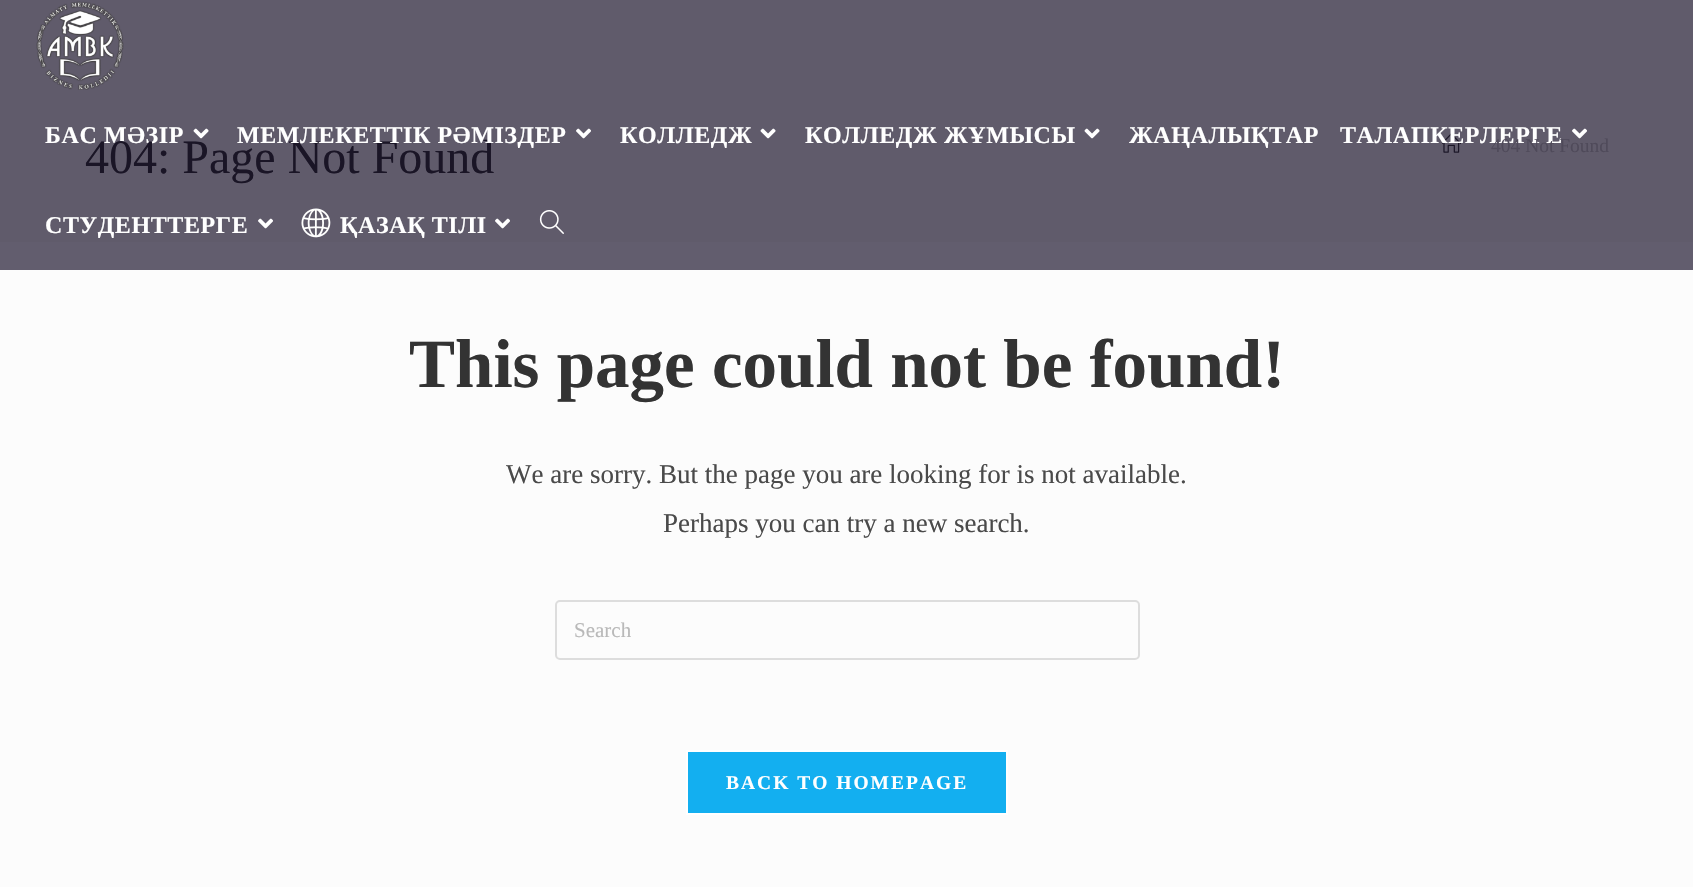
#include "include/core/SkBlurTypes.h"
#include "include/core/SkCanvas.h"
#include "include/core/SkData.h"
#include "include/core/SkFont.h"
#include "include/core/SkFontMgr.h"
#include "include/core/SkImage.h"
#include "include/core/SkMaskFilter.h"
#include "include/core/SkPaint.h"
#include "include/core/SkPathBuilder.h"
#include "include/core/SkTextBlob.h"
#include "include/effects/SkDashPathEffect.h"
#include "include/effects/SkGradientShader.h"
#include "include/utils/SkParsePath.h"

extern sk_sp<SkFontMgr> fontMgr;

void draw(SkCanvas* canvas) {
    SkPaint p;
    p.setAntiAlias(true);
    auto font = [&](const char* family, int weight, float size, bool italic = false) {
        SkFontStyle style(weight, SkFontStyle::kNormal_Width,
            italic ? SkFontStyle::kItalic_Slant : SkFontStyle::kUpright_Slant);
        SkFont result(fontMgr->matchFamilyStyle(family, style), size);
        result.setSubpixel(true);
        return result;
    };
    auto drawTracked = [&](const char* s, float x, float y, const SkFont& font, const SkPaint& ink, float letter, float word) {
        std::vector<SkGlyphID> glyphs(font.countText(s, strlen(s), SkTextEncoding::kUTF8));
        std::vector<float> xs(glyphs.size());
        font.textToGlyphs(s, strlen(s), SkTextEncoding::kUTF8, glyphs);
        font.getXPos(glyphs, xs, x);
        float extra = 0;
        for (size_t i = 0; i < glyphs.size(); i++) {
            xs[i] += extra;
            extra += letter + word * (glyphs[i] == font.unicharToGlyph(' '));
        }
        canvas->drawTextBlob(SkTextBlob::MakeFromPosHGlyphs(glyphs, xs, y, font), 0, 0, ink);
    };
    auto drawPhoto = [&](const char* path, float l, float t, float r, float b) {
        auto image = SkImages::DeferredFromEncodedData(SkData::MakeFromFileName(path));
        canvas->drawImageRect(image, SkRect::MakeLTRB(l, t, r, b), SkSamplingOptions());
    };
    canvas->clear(0xFFFCFCFC);
    p.setColor(0xFF625D6E);
    canvas->drawRect(SkRect::MakeLTRB(0, 242, 1693, 270), p);
    p.setColor(0xFF605B6B);
    canvas->drawRect(SkRect::MakeLTRB(0, 0, 1693, 242), p);
    drawPhoto("media/1.png", 36, 1, 124, 90);
    auto font1 = font("Liberation Serif", 700, 24);
    p.setColor(0xFFFFFFFF);
    drawTracked("БАС МӘЗІР", 45, 143, font1, p, 0.6f, 0);
    drawPhoto("media/2.png", 193, 128, 209, 139);
    auto font2 = font("Liberation Serif", 400, 48);
    p.setColor(0xFF1A1526);
    canvas->drawString("404: Page Not Found", 85, 173, font2, p);
    p.setColor(0xFFFFFFFF);
    drawTracked("МЕМЛЕКЕТТІК РӘМІЗДЕР", 237, 143, font1, p, 0.6f, 0);
    drawPhoto("media/3.png", 576, 128, 591, 139);
    drawTracked("КОЛЛЕДЖ", 620, 143, font1, p, 0.6f, 0);
    drawPhoto("media/2.png", 760, 128, 776, 139);
    drawTracked("КОЛЛЕДЖ ЖҰМЫСЫ", 805, 143, font1, p, 0.6f, 0);
    drawPhoto("media/2.png", 1084, 128, 1100, 139);
    drawTracked("ЖАҢАЛЫҚТАР", 1129, 143, font1, p, 0.6f, 0);
    drawPhoto("media/6.png", 1442, 133, 1461, 153);
    drawTracked("ТАЛАПКЕРЛЕРГЕ", 1340, 143, font1, p, 0.6f, 0);
    auto font3 = font("Liberation Serif", 400, 19.5f);
    p.setColor(0xFF4F4A5A);
    canvas->drawString("404 Not Found", 1491, 152, font3, p);
    drawPhoto("media/3.png", 1572, 128, 1587, 139);
    p.setColor(0xFFFFFFFF);
    drawTracked("СТУДЕНТТЕРГЕ", 45, 233, font1, p, 0.6f, 0);
    drawPhoto("media/3.png", 258, 218, 273, 229);
    drawPhoto("media/4.png", 301, 208, 331, 238);
    drawTracked("ҚАЗАҚ ТІЛІ", 340, 233, font1, p, 0.6f, 0);
    drawPhoto("media/3.png", 495, 218, 510, 229);
    drawPhoto("media/5.png", 539, 210, 564, 234);
    auto font4 = font("Liberation Serif", 700, 69);
    p.setColor(0xFF333333);
    canvas->drawString("This page could not be found!", 409, 387, font4, p);
    auto font5 = font("Liberation Serif", 400, 27);
    p.setColor(0xFF4A4A4A);
    canvas->drawString("We are sorry. But the page you are looking for is not available.", 506, 483, font5, p);
    canvas->drawString("Perhaps you can try a new search.", 663, 532, font5, p);
    p.setStyle(SkPaint::kStroke_Style);
    p.setStrokeWidth(2);
    p.setColor(0xFFDDDDDD);
    canvas->drawRoundRect(SkRect::MakeLTRB(556, 601, 1139, 659), 4, 4, p);
    auto font6 = font("Liberation Serif", 400, 21);
    p.setStyle(SkPaint::kFill_Style);
    p.setColor(0xFFB9B9B9);
    canvas->drawString("Search", 574, 637, font6, p);
    p.setColor(0xFF13AFF0);
    canvas->drawRect(SkRect::MakeLTRB(687, 751, 1007, 814), p);
    p.setStyle(SkPaint::kStroke_Style);
    p.setColor(0xFFFFFFFF);
    canvas->drawRect(SkRect::MakeLTRB(687, 751, 1007, 814), p);
    auto font7 = font("Liberation Serif", 700, 19.5f);
    p.setStyle(SkPaint::kFill_Style);
    drawTracked("BACK TO HOMEPAGE", 726, 789, font7, p, 2, 0);
}
